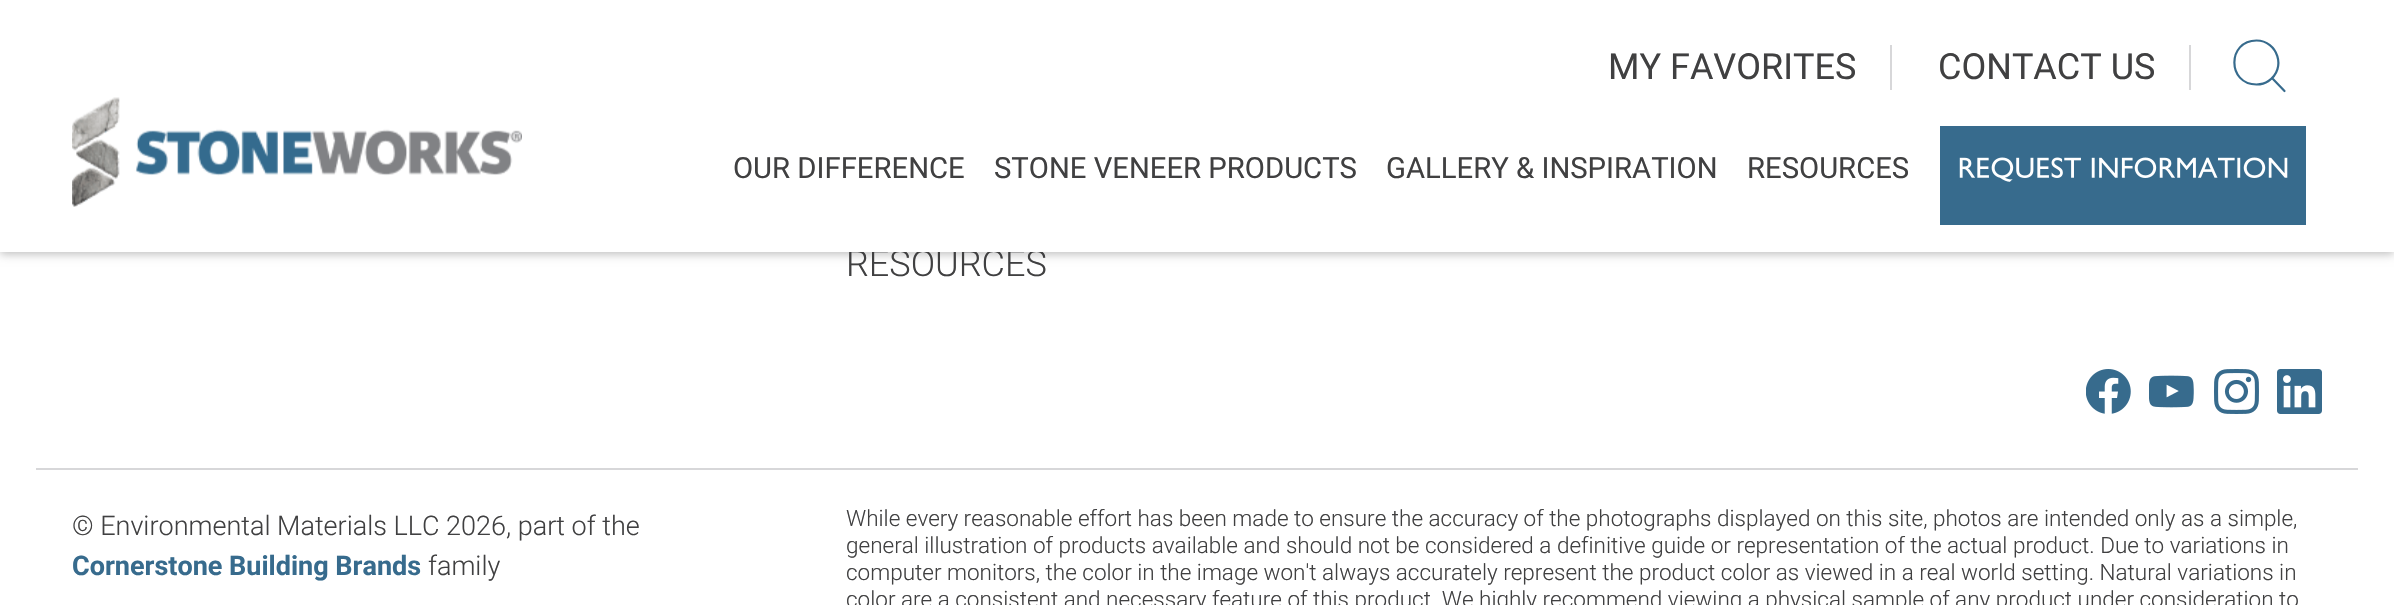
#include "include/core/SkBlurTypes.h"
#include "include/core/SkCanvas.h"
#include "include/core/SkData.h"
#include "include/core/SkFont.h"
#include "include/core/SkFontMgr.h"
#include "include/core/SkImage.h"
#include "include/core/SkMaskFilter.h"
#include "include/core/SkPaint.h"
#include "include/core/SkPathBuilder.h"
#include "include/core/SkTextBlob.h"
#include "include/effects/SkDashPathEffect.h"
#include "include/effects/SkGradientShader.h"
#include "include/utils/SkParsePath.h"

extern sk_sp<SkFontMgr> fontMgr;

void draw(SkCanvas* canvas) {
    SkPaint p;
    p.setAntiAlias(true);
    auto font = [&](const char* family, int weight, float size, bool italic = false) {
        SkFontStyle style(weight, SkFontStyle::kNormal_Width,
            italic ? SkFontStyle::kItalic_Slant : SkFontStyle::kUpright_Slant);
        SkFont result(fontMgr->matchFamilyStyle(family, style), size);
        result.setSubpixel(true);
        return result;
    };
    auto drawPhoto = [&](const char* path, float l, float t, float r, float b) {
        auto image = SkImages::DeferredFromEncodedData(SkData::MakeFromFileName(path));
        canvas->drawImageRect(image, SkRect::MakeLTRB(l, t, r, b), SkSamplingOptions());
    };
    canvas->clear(0xFFFFFFFF);
    p.setColor(0xFFBCBCBC);
    p.setMaskFilter(SkMaskFilter::MakeBlur(kNormal_SkBlurStyle, 4.5f));
    canvas->drawRect(SkRect::MakeLTRB(0, 2, 2394, 254), p);
    p.setMaskFilter(nullptr);
    auto font1 = font("Roboto", 300, 36);
    p.setColor(0xFF404041);
    canvas->drawString("RESOURCES", 846, 276, font1, p);
    p.setColor(0xFFFFFFFF);
    canvas->drawRect(SkRect::MakeLTRB(0, 0, 2394, 252), p);
    auto font2 = font("Roboto", 400, 36);
    p.setColor(0xFF404041);
    canvas->drawString("MY FAVORITES", 1608, 79, font2, p);
    p.setColor(0xFFD7D7D9);
    canvas->drawRect(SkRect::MakeLTRB(1890, 45, 1892, 90), p);
    p.setColor(0xFF404041);
    canvas->drawString("CONTACT US", 1938, 79, font2, p);
    p.setColor(0xFFD7D7D9);
    canvas->drawRect(SkRect::MakeLTRB(2189, 45, 2191, 90), p);
    p.setStyle(SkPaint::kStroke_Style);
    p.setStrokeWidth(2.2f);
    p.setStrokeCap(SkPaint::kRound_Cap);
    p.setStrokeJoin(SkPaint::kRound_Join);
    p.setColor(0xFF376B8D);
    canvas->drawPath(SkPathBuilder().moveTo(2256.5f, 84.5f).cubicTo(2260.5f, 84.5f, 2265, 83.5f, 2268.5f, 81).cubicTo(2287, 68.5f, 2277.5f, 40.5f, 2256.5f, 40.5f).cubicTo(2227, 40.5f, 2227, 84.5f, 2256.5f, 84.5f).close().moveTo(2272, 78).lineTo(2284.5f, 91).detach(), p);
    drawPhoto("media/1.png", 72, 97, 522, 207);
    auto font3 = font("Roboto", 400, 29.25f);
    p.setStyle(SkPaint::kFill_Style);
    p.setColor(0xFF404041);
    {
        const struct { const char* s; float x, y; } items[] = {
            {"OUR DIFFERENCE", 733, 178},
            {"STONE VENEER PRODUCTS", 994, 178},
            {"GALLERY & INSPIRATION", 1386, 178},
            {"RESOURCES", 1747, 178},
        };
        for (auto [s, x, y] : items) {
            canvas->drawString(s, x, y, font3, p);
        }
    }
    p.setColor(0xFF376B8D);
    canvas->drawRect(SkRect::MakeLTRB(1940, 126, 2306, 225), p);
    drawPhoto("media/2.png", 1959, 157, 2288, 182);
    drawPhoto("media/3.png", 2086, 369, 2131, 414);
    drawPhoto("media/4.png", 2149, 375, 2194, 408);
    drawPhoto("media/5.png", 2214, 369, 2259, 414);
    drawPhoto("media/6.png", 2277, 369, 2322, 414);
    p.setColor(0xFFD7D7D9);
    canvas->drawRect(SkRect::MakeLTRB(36, 468, 2358, 470), p);
    auto font4 = font("Roboto", 300, 27);
    p.setColor(0xFF404041);
    canvas->drawString("© Environmental Materials LLC 2026, part of the", 72, 535, font4, p);
    auto font5 = font("Roboto", 700, 27);
    p.setColor(0xFF376B8D);
    canvas->drawString("Cornerstone Building Brands", 72, 575, font5, p);
    p.setColor(0xFF404041);
    canvas->drawString("family", 428, 575, font4, p);
    auto font6 = font("Roboto", 300, 22.5f);
    {
        const struct { const char* s; float x, y; } items[] = {
            {"While every reasonable effort has been made to ensure the accuracy of the photographs displayed on this site, photos are intended only as a simple,", 846, 526},
            {"general illustration of products available and should not be considered a definitive guide or representation of the actual product. Due to variations in", 846, 553},
            {"computer monitors, the color in the image won't always accurately represent the product color as viewed in a real world setting. Natural variations in", 846, 580},
            {"color are a consistent and necessary feature of this product. We highly recommend viewing a physical sample of any product under consideration to", 846, 607},
        };
        for (auto [s, x, y] : items) {
            canvas->drawString(s, x, y, font6, p);
        }
    }
}
